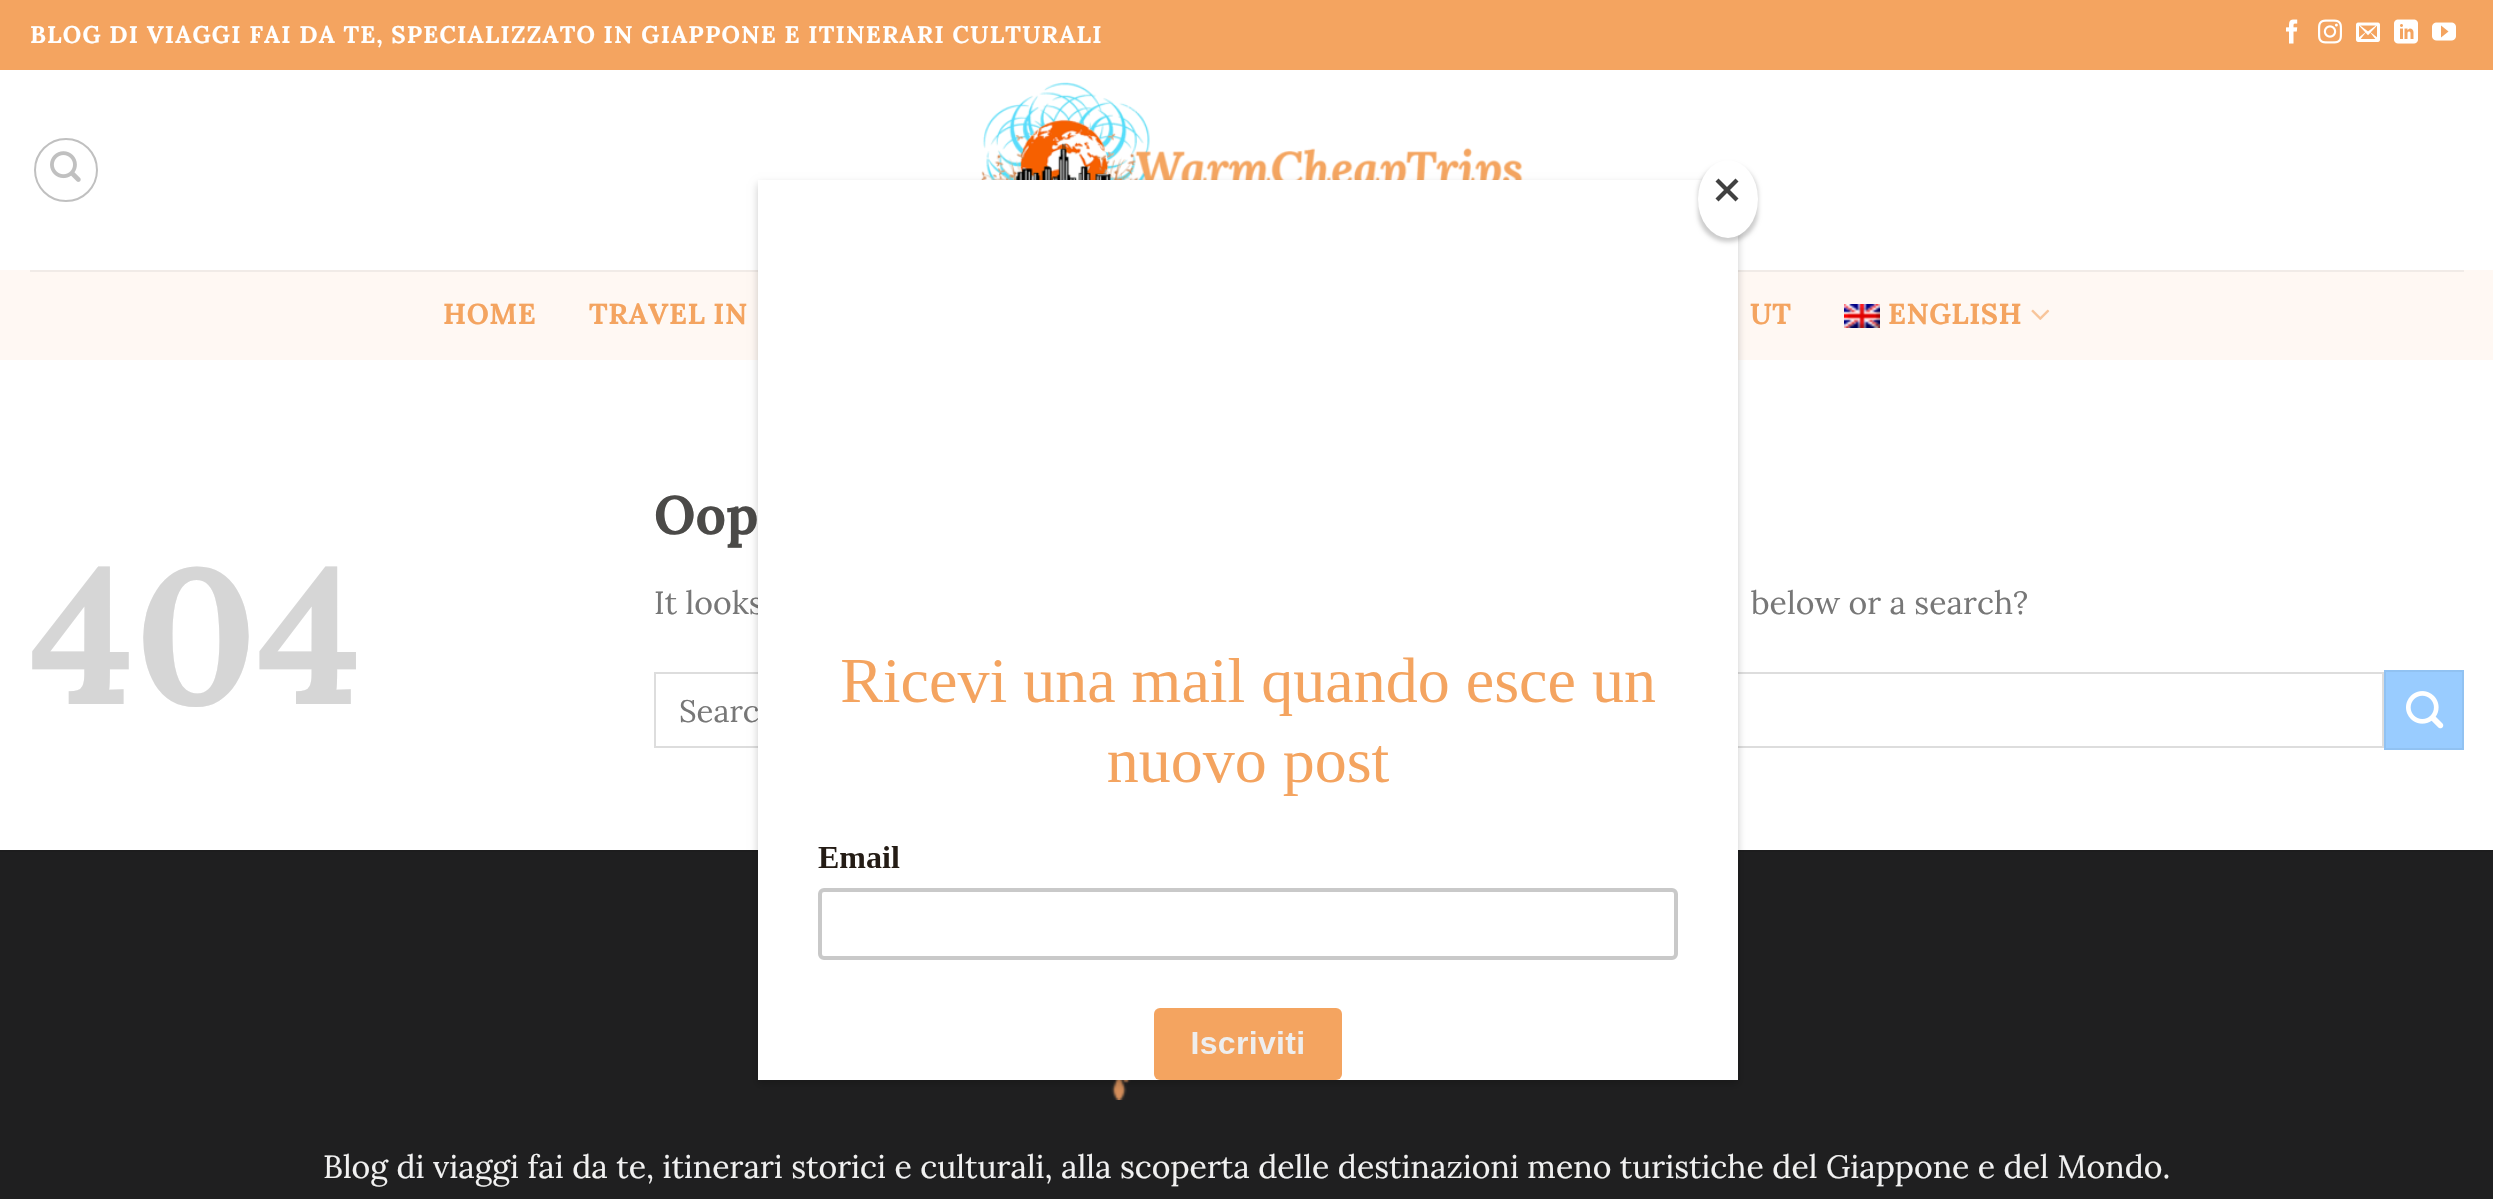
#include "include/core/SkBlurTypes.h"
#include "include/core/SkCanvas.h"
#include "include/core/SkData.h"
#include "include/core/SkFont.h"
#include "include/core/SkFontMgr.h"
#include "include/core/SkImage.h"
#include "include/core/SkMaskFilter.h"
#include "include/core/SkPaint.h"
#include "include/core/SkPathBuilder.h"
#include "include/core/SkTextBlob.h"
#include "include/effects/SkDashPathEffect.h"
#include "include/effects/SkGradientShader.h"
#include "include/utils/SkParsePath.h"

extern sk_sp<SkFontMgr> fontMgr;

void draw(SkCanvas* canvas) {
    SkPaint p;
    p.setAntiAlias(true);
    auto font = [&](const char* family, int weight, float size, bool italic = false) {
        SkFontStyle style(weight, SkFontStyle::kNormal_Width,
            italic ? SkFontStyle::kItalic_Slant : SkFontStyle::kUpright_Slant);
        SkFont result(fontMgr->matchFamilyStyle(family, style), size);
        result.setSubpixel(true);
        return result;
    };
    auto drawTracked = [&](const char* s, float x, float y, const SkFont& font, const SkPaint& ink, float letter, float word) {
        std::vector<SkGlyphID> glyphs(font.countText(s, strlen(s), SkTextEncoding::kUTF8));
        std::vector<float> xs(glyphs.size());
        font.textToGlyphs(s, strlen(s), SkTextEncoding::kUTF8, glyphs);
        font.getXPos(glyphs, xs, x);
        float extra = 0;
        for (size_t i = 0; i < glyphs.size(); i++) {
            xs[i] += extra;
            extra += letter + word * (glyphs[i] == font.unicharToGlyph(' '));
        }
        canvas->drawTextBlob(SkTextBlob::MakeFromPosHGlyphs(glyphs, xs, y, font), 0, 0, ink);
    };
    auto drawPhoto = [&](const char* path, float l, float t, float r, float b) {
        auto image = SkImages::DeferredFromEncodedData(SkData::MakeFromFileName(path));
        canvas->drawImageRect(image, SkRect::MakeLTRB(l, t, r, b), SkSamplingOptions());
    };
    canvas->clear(0xFFFFFFFF);
    p.setColor(0xFFF4A460);
    canvas->drawRect(SkRect::MakeLTRB(0, 0, 2493, 70), p);
    auto font1 = font("Lora", 700, 24);
    p.setColor(0xFFFFFFFF);
    drawTracked("BLOG DI VIAGGI FAI DA TE, SPECIALIZZATO IN GIAPPONE E ITINERARI CULTURALI", 30, 43, font1, p, 1.2f, 0);
    drawPhoto("media/1.png", 2286, 19, 2298, 44);
    drawPhoto("media/2.png", 2318, 19, 2342, 44);
    drawPhoto("media/3.png", 2356, 22, 2380, 42);
    drawPhoto("media/4.png", 2394, 19, 2418, 44);
    drawPhoto("media/5.png", 2432, 22, 2456, 41);
    p.setStyle(SkPaint::kStroke_Style);
    p.setStrokeWidth(2);
    p.setColor(0xFFC0C0C0);
    canvas->drawCircle(66, 170, 31, p);
    drawPhoto("media/6.png", 50, 151, 81, 182);
    drawPhoto("media/7.png", 980, 82, 1523, 180);
    p.setStyle(SkPaint::kFill_Style);
    p.setColor(0xFFFFF8F3);
    canvas->drawRect(SkRect::MakeLTRB(0, 270, 2493, 360), p);
    p.setColor(0xFFF1EBE7);
    canvas->drawRect(SkRect::MakeLTRB(30, 270, 2464, 272), p);
    auto font2 = font("Lora", 700, 28.75f);
    p.setColor(0xFFF4A460);
    {
        const struct { const char* s; float x, y; } items[] = {
            {"HOME", 443, 324},
            {"TRAVEL IN", 589, 324},
            {"UT", 1750, 324},
        };
        for (auto [s, x, y] : items) {
            drawTracked(s, x, y, font2, p, 0.5f, 0);
        }
    }
    drawPhoto("media/8.png", 1844, 304, 1880, 328);
    drawTracked("ENGLISH", 1888, 324, font2, p, 0.5f, 0);
    drawPhoto("media/9.png", 2031, 309, 2050, 320);
    auto font3 = font("Lora", 700, 192);
    p.setColor(0xFFD6D6D6);
    canvas->drawString("404", 30, 704, font3, p);
    auto font4 = font("Lora", 700, 54);
    p.setColor(0xFF4B4A48);
    canvas->drawString("Oop", 654, 534, font4, p);
    auto font5 = font("Lora", 400, 32);
    p.setColor(0xFF777777);
    canvas->drawString("It looks", 654, 614, font5, p);
    canvas->drawString("below or a search?", 1751, 614, font5, p);
    p.setStyle(SkPaint::kStroke_Style);
    p.setColor(0xFFDDDDDD);
    canvas->drawRect(SkRect::MakeLTRB(655, 673, 2383, 747), p);
    auto font6 = font("Lora", 400, 31);
    p.setStyle(SkPaint::kFill_Style);
    p.setColor(0xFF777777);
    canvas->drawString("Searc", 679, 722, font6, p);
    p.setColor(0xFF99CCFF);
    canvas->drawRect(SkRect::MakeLTRB(2385, 671, 2463, 749), p);
    p.setStyle(SkPaint::kStroke_Style);
    p.setColor(0xFF91C2F2);
    canvas->drawRect(SkRect::MakeLTRB(2385, 671, 2463, 749), p);
    drawPhoto("media/10.png", 2406, 691, 2444, 729);
    p.setStyle(SkPaint::kFill_Style);
    p.setColor(0xFF1F1F20);
    canvas->drawRect(SkRect::MakeLTRB(0, 852, 2493, 1199), p);
    p.setColor(0xFF1D1D1E);
    canvas->drawRect(SkRect::MakeLTRB(0, 850, 2493, 852), p);
    drawPhoto("media/11.png", 1111, 1080, 1131, 1100);
    p.setColor(0xFFF1F1F1);
    canvas->drawString("Blog di viaggi fai da te, itinerari storici e culturali, alla scoperta delle destinazioni meno turistiche del Giappone e del Mondo.", 323, 1178, font5, p);
    p.setColor(0x33000000);
    p.setMaskFilter(SkMaskFilter::MakeBlur(kNormal_SkBlurStyle, 4));
    canvas->drawRect(SkRect::MakeLTRB(758, 184, 1738, 1084), p);
    p.setMaskFilter(nullptr);
    drawPhoto("media/12.png", 758, 180, 1738, 1080);
    p.setMaskFilter(SkMaskFilter::MakeBlur(kNormal_SkBlurStyle, 2));
    canvas->drawRoundRect(SkRect::MakeLTRB(1698, 164, 1758, 242), 30, 30, p);
    p.setMaskFilter(nullptr);
    p.setColor(0xFFFFFFFF);
    canvas->drawOval(SkRect::MakeLTRB(1698, 160, 1758, 238), p);
    p.setColor(0xFF414141);
    canvas->drawPath(SkPathBuilder().moveTo(1735.5f, 178.5f).lineTo(1738.5f, 181.5f).lineTo(1718.5f, 201.5f).lineTo(1715.5f, 198.5f).close().detach(), p);
    canvas->drawPath(SkPathBuilder().moveTo(1715.5f, 181.5f).lineTo(1718.5f, 178.5f).lineTo(1738.5f, 198.5f).lineTo(1735.5f, 201.5f).close().detach(), p);
}
